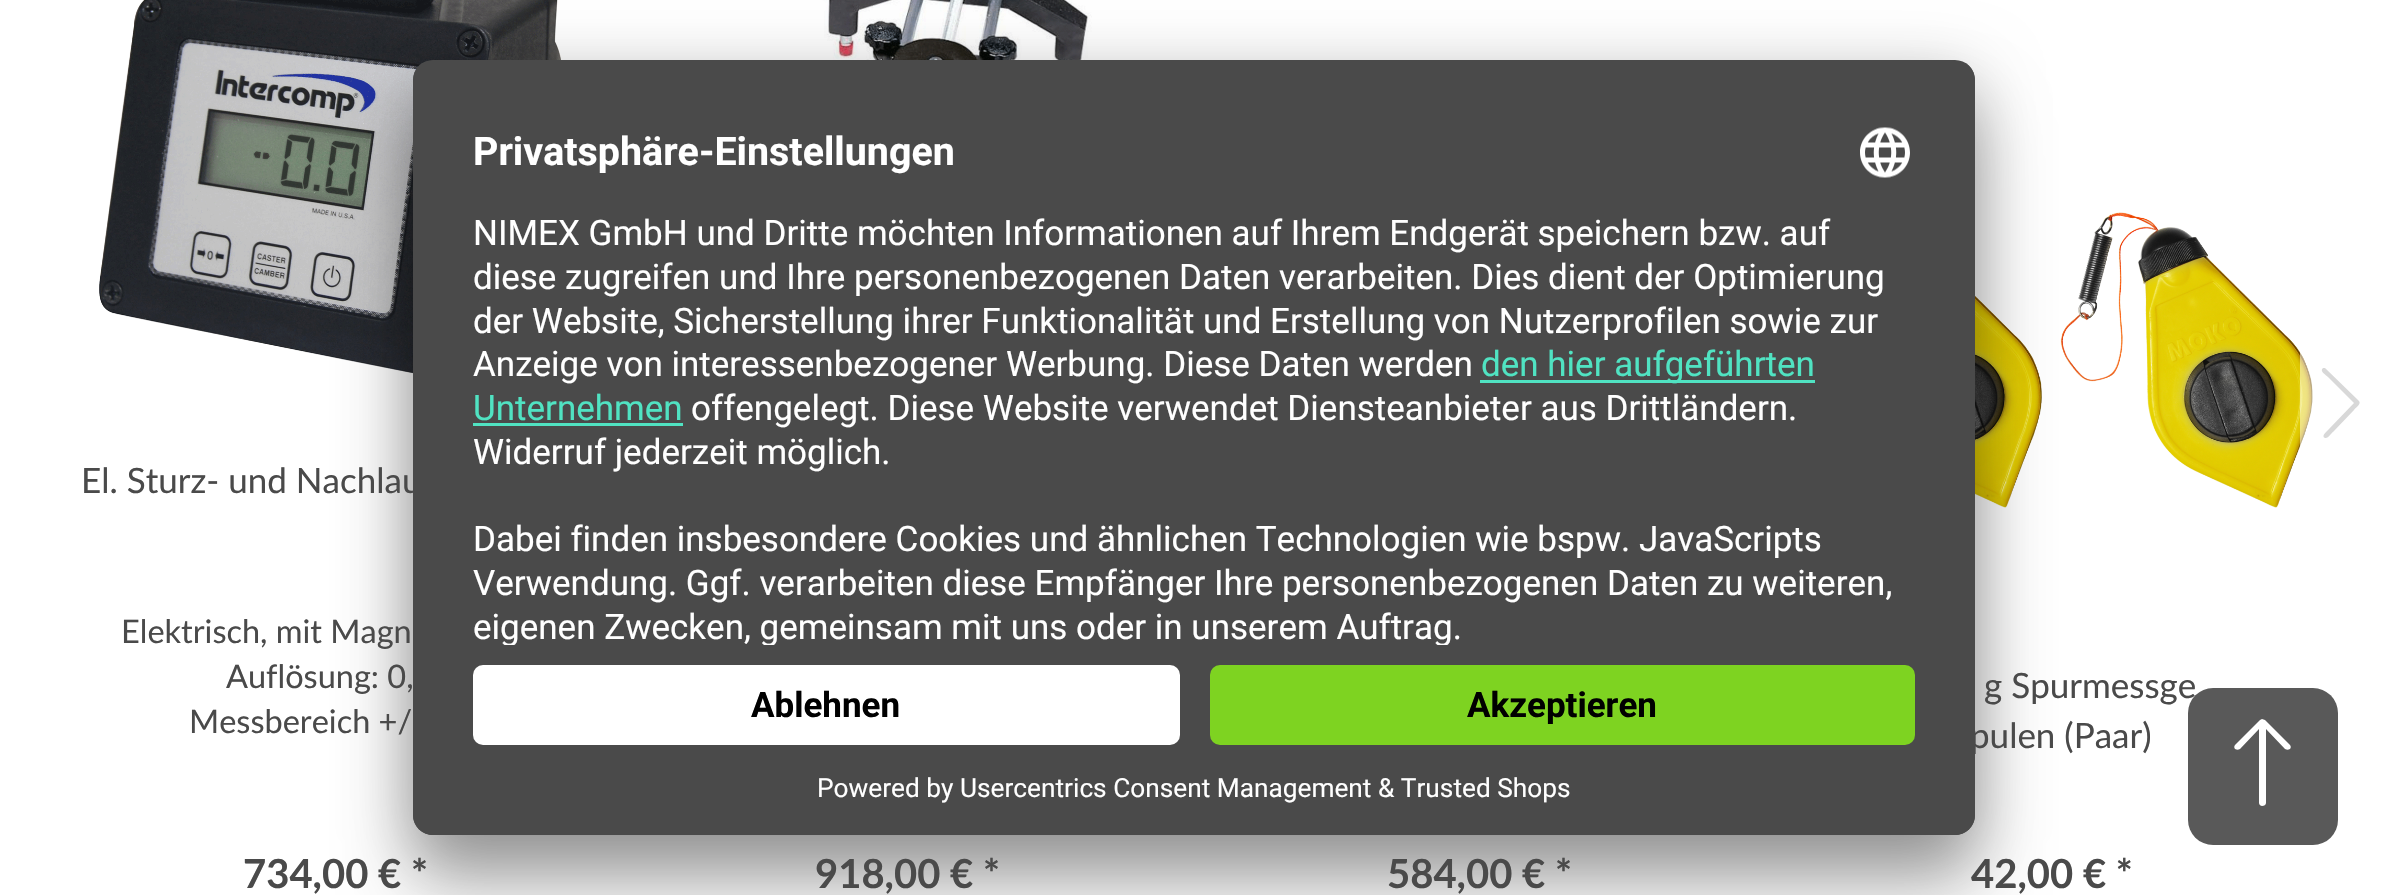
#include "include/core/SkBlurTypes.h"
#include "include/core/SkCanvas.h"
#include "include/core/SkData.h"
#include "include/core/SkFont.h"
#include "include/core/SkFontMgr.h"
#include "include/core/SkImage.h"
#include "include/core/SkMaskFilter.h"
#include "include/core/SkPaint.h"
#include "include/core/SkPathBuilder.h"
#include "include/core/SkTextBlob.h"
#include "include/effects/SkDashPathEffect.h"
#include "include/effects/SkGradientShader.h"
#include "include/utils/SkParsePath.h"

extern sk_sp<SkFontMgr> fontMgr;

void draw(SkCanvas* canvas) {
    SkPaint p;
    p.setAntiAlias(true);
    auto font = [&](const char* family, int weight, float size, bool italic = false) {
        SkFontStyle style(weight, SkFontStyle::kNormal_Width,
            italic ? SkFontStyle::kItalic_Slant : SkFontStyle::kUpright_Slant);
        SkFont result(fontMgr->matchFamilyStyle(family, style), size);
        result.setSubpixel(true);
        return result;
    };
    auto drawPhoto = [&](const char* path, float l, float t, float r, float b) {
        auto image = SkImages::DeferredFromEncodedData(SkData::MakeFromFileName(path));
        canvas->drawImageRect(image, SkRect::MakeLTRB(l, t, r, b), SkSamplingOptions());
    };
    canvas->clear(0xFFFFFFFF);
    drawPhoto("media/2.png", 99, 0, 563, 376);
    drawPhoto("media/3.png", 740, 0, 1092, 60);
    drawPhoto("media/4.png", 1975, 212, 2313, 508);
    p.setColor(0x4D000000);
    p.setMaskFilter(SkMaskFilter::MakeBlur(kNormal_SkBlurStyle, 35));
    canvas->drawRoundRect(SkRect::MakeLTRB(413, 110, 1975, 885), 20, 20, p);
    p.setMaskFilter(nullptr);
    p.setColor(0x38000000);
    p.setMaskFilter(SkMaskFilter::MakeBlur(kNormal_SkBlurStyle, 32.5f));
    canvas->drawRoundRect(SkRect::MakeLTRB(413, 73, 1975, 848), 20, 20, p);
    p.setMaskFilter(nullptr);
    p.setColor(0xFF4A4A4A);
    canvas->drawRoundRect(SkRect::MakeLTRB(413, 60, 1975, 835), 20, 20, p);
    canvas->save();
    canvas->clipPath(SkPathBuilder().moveTo(433, 60).lineTo(1955, 60).cubicTo(1966, 60, 1975, 69, 1975, 80).lineTo(1975, 815).cubicTo(1975, 826, 1966, 835, 1955, 835).lineTo(433, 835).cubicTo(422, 835, 413, 826, 413, 815).lineTo(413, 80).cubicTo(413, 69, 422, 60, 433, 60).close().detach(), true);
    canvas->clipPath(SkPathBuilder().moveTo(433, 60).lineTo(1955, 60).cubicTo(1966, 60, 1975, 69, 1975, 80).lineTo(1975, 645).lineTo(413, 645).lineTo(413, 80).cubicTo(413, 69, 422, 60, 433, 60).close().detach(), true);
    canvas->drawRect(SkRect::MakeLTRB(413, 63, 1975, 645), p);
    canvas->restore();
    auto font1 = font("Roboto", 700, 39.4f);
    p.setColor(0xFFFFFFFF);
    canvas->drawString("Privatsphäre-Einstellungen", 473, 165, font1, p);
    drawPhoto("media/1.png", 1860, 127, 1910, 178);
    auto font2 = font("Roboto", 400, 35);
    {
        const struct { const char* s; float x, y; } items[] = {
            {"NIMEX GmbH und Dritte möchten Informationen auf Ihrem Endgerät speichern bzw. auf", 473, 245},
            {"diese zugreifen und Ihre personenbezogenen Daten verarbeiten. Dies dient der Optimierung", 473, 289},
            {"der Website, Sicherstellung ihrer Funktionalität und Erstellung von Nutzerprofilen sowie zur", 473, 333},
            {"Anzeige von interessenbezogener Werbung. Diese Daten werden", 473, 376},
        };
        for (auto [s, x, y] : items) {
            canvas->drawString(s, x, y, font2, p);
        }
    }
    p.setColor(0xFF50E3C2);
    canvas->drawRect(SkRect::MakeLTRB(1480, 380, 1815, 383), p);
    canvas->drawString("den hier aufgeführten", 1481, 376, font2, p);
    canvas->drawString("Unternehmen", 473, 420, font2, p);
    canvas->drawRect(SkRect::MakeLTRB(473, 423, 683, 426), p);
    p.setColor(0xFFFFFFFF);
    {
        const struct { const char* s; float x, y; } items[] = {
            {"offengelegt. Diese Website verwendet Diensteanbieter aus Drittländern.", 691, 420},
            {"Widerruf jederzeit möglich.", 473, 464},
            {"Dabei finden insbesondere Cookies und ähnlichen Technologien wie bspw. JavaScripts", 473, 551},
            {"Verwendung. Ggf. verarbeiten diese Empfänger Ihre personenbezogenen Daten zu weiteren,", 473, 595},
        };
        for (auto [s, x, y] : items) {
            canvas->drawString(s, x, y, font2, p);
        }
    }
    canvas->save();
    canvas->clipPath(SkPathBuilder().moveTo(433, 60).lineTo(1955, 60).cubicTo(1966, 60, 1975, 69, 1975, 80).lineTo(1975, 645).lineTo(413, 645).lineTo(413, 80).cubicTo(413, 69, 422, 60, 433, 60).close().detach(), true);
    canvas->drawString("eigenen Zwecken, gemeinsam mit uns oder in unserem Auftrag.", 473, 639, font2, p);
    canvas->restore();
    p.setColor(0xFF4A4A4A);
    canvas->drawPath(SkPathBuilder().moveTo(413, 645).lineTo(1975, 645).lineTo(1975, 815).cubicTo(1975, 826, 1966, 835, 1955, 835).lineTo(433, 835).cubicTo(422, 835, 413, 826, 413, 815).close().detach(), p);
    p.setColor(0xFFFFFFFF);
    canvas->drawRoundRect(SkRect::MakeLTRB(473, 665, 1180, 745), 10, 10, p);
    auto font3 = font("Roboto", 700, 35);
    p.setColor(0xFF000000);
    canvas->drawString("Ablehnen", 751, 717, font3, p);
    p.setColor(0xFF7ED321);
    canvas->drawRoundRect(SkRect::MakeLTRB(1210, 665, 1915, 745), 10, 10, p);
    p.setColor(0xFF000000);
    canvas->drawString("Akzeptieren", 1467, 717, font3, p);
    auto font4 = font("Roboto", 400, 26.25f);
    p.setColor(0xFFFFFFFF);
    canvas->drawString("Powered by Usercentrics Consent Management & Trusted Shops", 817, 797, font4, p);
    p.setColor(0x80FFFFFF);
    canvas->drawPath(SkPathBuilder().moveTo(2308, 328).lineTo(2375, 328).lineTo(2375, 478).lineTo(2308, 478).cubicTo(2303.5f, 478, 2300, 474.5f, 2300, 470).lineTo(2300, 336).cubicTo(2300, 331.5f, 2303.5f, 328, 2308, 328).close().detach(), p);
    p.setColor(0xFFD8D8D8);
    canvas->drawPath(SkPathBuilder().moveTo(2324, 368).lineTo(2323, 368).cubicTo(2319, 371, 2326, 375, 2328, 377).lineTo(2354, 403).lineTo(2329, 429).cubicTo(2326, 432, 2321, 436, 2325, 438).cubicTo(2328, 439, 2332, 432, 2333, 432).lineTo(2354, 410).cubicTo(2354, 409, 2362, 404, 2359, 401).lineTo(2325, 368).close().detach(), p);
    auto font5 = font("Lato", 400, 35);
    p.setColor(0xFF4A4A4A);
    canvas->drawString("El. Sturz- und Nachlau", 81, 493, font5, p);
    auto font6 = font("Lato", 400, 32.5f);
    {
        const struct { const char* s; float x, y; } items[] = {
            {"Elektrisch, mit Magn", 121, 643},
            {"Auflösung: 0,", 226, 688},
            {"Messbereich +/", 189, 733},
        };
        for (auto [s, x, y] : items) {
            canvas->drawString(s, x, y, font6, p);
        }
    }
    auto font7 = font("Lato", 700, 40);
    {
        const struct { const char* s; float x, y; } items[] = {
            {"734,00 € *", 243, 888},
            {"918,00 € *", 815, 888},
            {"584,00 € *", 1387, 888},
        };
        for (auto [s, x, y] : items) {
            canvas->drawString(s, x, y, font7, p);
        }
    }
    canvas->drawString("g Spurmessge", 1984, 698, font5, p);
    canvas->drawString("pulen (Paar)", 1970, 748, font5, p);
    canvas->drawString("42,00 € *", 1971, 888, font7, p);
    p.setColor(0xCC303030);
    canvas->drawRoundRect(SkRect::MakeLTRB(2188, 688, 2338, 845), 25, 25, p);
    p.setColor(0xFFFFFFFF);
    canvas->drawPath(SkPathBuilder(SkPathFillType::kEvenOdd).moveTo(2262, 806).cubicTo(2264, 806, 2266, 805, 2266, 803).lineTo(2266, 729).lineTo(2285, 749).cubicTo(2287, 750, 2288, 750, 2290, 749).cubicTo(2291, 748, 2291, 746, 2290, 745).lineTo(2265, 720).lineTo(2262, 719).lineTo(2260, 720).lineTo(2235, 745).cubicTo(2234, 746, 2234, 748, 2235, 749).cubicTo(2237, 750, 2238, 750, 2240, 749).lineTo(2259, 729).lineTo(2259, 803).cubicTo(2259, 805, 2261, 806, 2262, 806).close().detach(), p);
}
